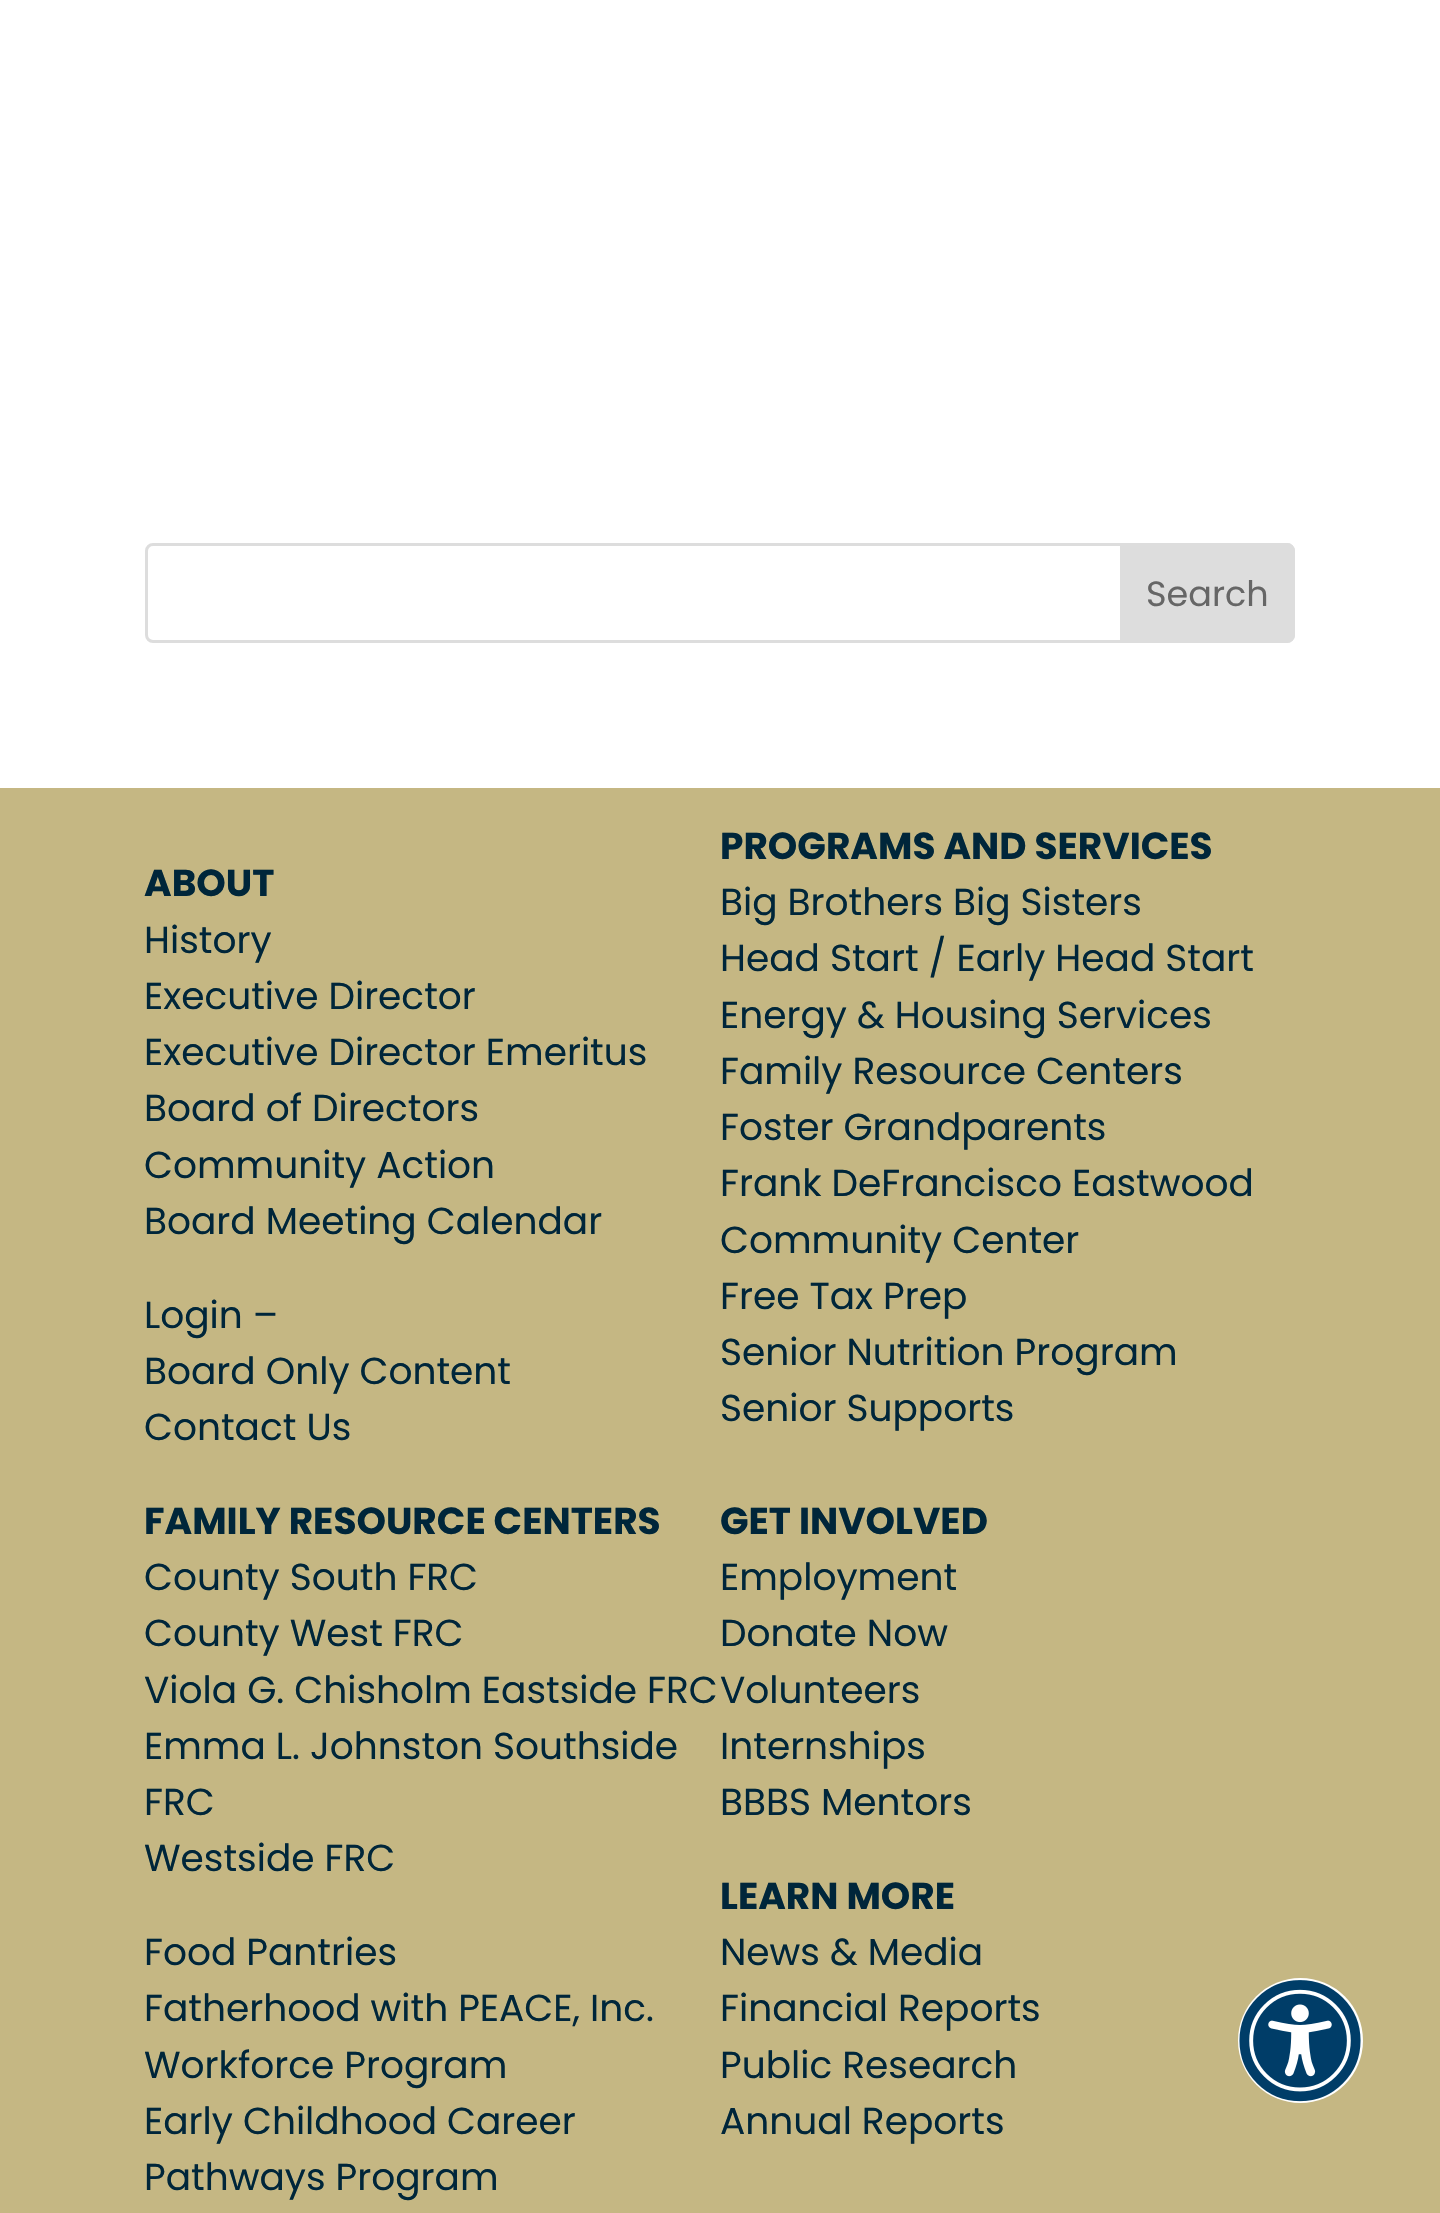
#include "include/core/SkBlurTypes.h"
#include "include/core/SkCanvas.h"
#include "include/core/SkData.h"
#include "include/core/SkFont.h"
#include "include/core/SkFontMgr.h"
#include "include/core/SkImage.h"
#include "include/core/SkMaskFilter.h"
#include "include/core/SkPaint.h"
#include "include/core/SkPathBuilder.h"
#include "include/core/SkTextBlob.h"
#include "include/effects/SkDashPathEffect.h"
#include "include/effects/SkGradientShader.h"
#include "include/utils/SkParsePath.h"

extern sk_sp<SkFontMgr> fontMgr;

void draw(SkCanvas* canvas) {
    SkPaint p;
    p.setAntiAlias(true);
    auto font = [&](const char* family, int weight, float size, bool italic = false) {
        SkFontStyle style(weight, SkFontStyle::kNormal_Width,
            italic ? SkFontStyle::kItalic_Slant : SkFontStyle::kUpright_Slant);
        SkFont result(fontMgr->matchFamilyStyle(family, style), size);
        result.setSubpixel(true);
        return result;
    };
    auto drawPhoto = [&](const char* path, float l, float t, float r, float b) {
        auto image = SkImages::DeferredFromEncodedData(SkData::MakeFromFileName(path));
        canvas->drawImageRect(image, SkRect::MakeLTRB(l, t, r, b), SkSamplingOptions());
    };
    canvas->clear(0xFFFFFFFF);
    p.setStyle(SkPaint::kStroke_Style);
    p.setStrokeWidth(3);
    p.setColor(0xFFDDDDDD);
    canvas->drawRoundRect(SkRect::MakeLTRB(146.5f, 544.5f, 1293.5f, 641.5f), 6.5f, 6.5f, p);
    p.setStyle(SkPaint::kFill_Style);
    canvas->drawPath(SkPathBuilder().moveTo(1121.5f, 544.5f).lineTo(1287, 544.5f).cubicTo(1290.5f, 544.5f, 1293.5f, 547.5f, 1293.5f, 551).lineTo(1293.5f, 635).cubicTo(1293.5f, 638.5f, 1290.5f, 641.5f, 1287, 641.5f).lineTo(1121.5f, 641.5f).close().detach(), p);
    p.setStyle(SkPaint::kStroke_Style);
    canvas->drawPath(SkPathBuilder().moveTo(1121.5f, 544.5f).lineTo(1287, 544.5f).cubicTo(1290.5f, 544.5f, 1293.5f, 547.5f, 1293.5f, 551).lineTo(1293.5f, 635).cubicTo(1293.5f, 638.5f, 1290.5f, 641.5f, 1287, 641.5f).lineTo(1121.5f, 641.5f).close().detach(), p);
    auto font1 = font("Poppins", 400, 35);
    p.setStyle(SkPaint::kFill_Style);
    p.setColor(0xFF666666);
    canvas->drawString("Search", 1146, 606, font1, p);
    p.setColor(0xFFC5B783);
    canvas->drawRect(SkRect::MakeLTRB(0, 788, 1440, 2213), p);
    auto font2 = font("Poppins", 700, 37.5f);
    p.setColor(0xFF00263A);
    canvas->drawString("ABOUT", 144, 896, font2, p);
    auto font3 = font("Poppins", 400, 37.5f);
    {
        const struct { const char* s; float x, y; } items[] = {
            {"History", 144, 953},
            {"Executive Director", 144, 1009},
            {"Executive Director Emeritus", 144, 1065},
            {"Board of Directors", 144, 1121},
            {"Community Action", 144, 1178},
            {"Board Meeting Calendar", 144, 1234},
            {"Login –", 144, 1328},
            {"Board Only Content", 144, 1384},
            {"Contact Us", 144, 1440},
        };
        for (auto [s, x, y] : items) {
            canvas->drawString(s, x, y, font3, p);
        }
    }
    canvas->drawString("PROGRAMS AND SERVICES", 720, 859, font2, p);
    {
        const struct { const char* s; float x, y; } items[] = {
            {"Big Brothers Big Sisters", 720, 915},
            {"Head Start / Early Head Start", 720, 971},
            {"Energy & Housing Services", 720, 1028},
            {"Family Resource Centers", 720, 1084},
            {"Foster Grandparents", 720, 1140},
            {"Frank DeFrancisco Eastwood", 720, 1196},
            {"Community Center", 720, 1253},
            {"Free Tax Prep", 720, 1309},
            {"Senior Nutrition Program", 720, 1365},
            {"Senior Supports", 720, 1421},
        };
        for (auto [s, x, y] : items) {
            canvas->drawString(s, x, y, font3, p);
        }
    }
    canvas->drawString("FAMILY RESOURCE CENTERS", 144, 1534, font2, p);
    {
        const struct { const char* s; float x, y; } items[] = {
            {"County South FRC", 144, 1590},
            {"County West FRC", 144, 1646},
            {"Viola G. Chisholm Eastside FRC", 144, 1703},
            {"Emma L. Johnston Southside", 144, 1759},
            {"FRC", 144, 1815},
            {"Westside FRC", 144, 1871},
            {"Food Pantries", 144, 1965},
            {"Fatherhood with PEACE, Inc.", 144, 2021},
            {"Workforce Program", 144, 2078},
            {"Early Childhood Career", 144, 2134},
            {"Pathways Program", 144, 2190},
        };
        for (auto [s, x, y] : items) {
            canvas->drawString(s, x, y, font3, p);
        }
    }
    canvas->drawString("GET INVOLVED", 720, 1534, font2, p);
    {
        const struct { const char* s; float x, y; } items[] = {
            {"Employment", 720, 1590},
            {"Donate Now", 720, 1646},
            {"Volunteers", 720, 1703},
            {"Internships", 720, 1759},
            {"BBBS Mentors", 720, 1815},
        };
        for (auto [s, x, y] : items) {
            canvas->drawString(s, x, y, font3, p);
        }
    }
    canvas->drawString("LEARN MORE", 720, 1909, font2, p);
    {
        const struct { const char* s; float x, y; } items[] = {
            {"News & Media", 720, 1965},
            {"Financial Reports", 720, 2021},
            {"Public Research", 720, 2078},
            {"Annual Reports", 720, 2134},
        };
        for (auto [s, x, y] : items) {
            canvas->drawString(s, x, y, font3, p);
        }
    }
    p.setColor(0xFFFFFFFF);
    canvas->drawCircle(1300.5f, 2040.5f, 62.5f, p);
    drawPhoto("media/1.png", 1239, 1980, 1361, 2102);
}
